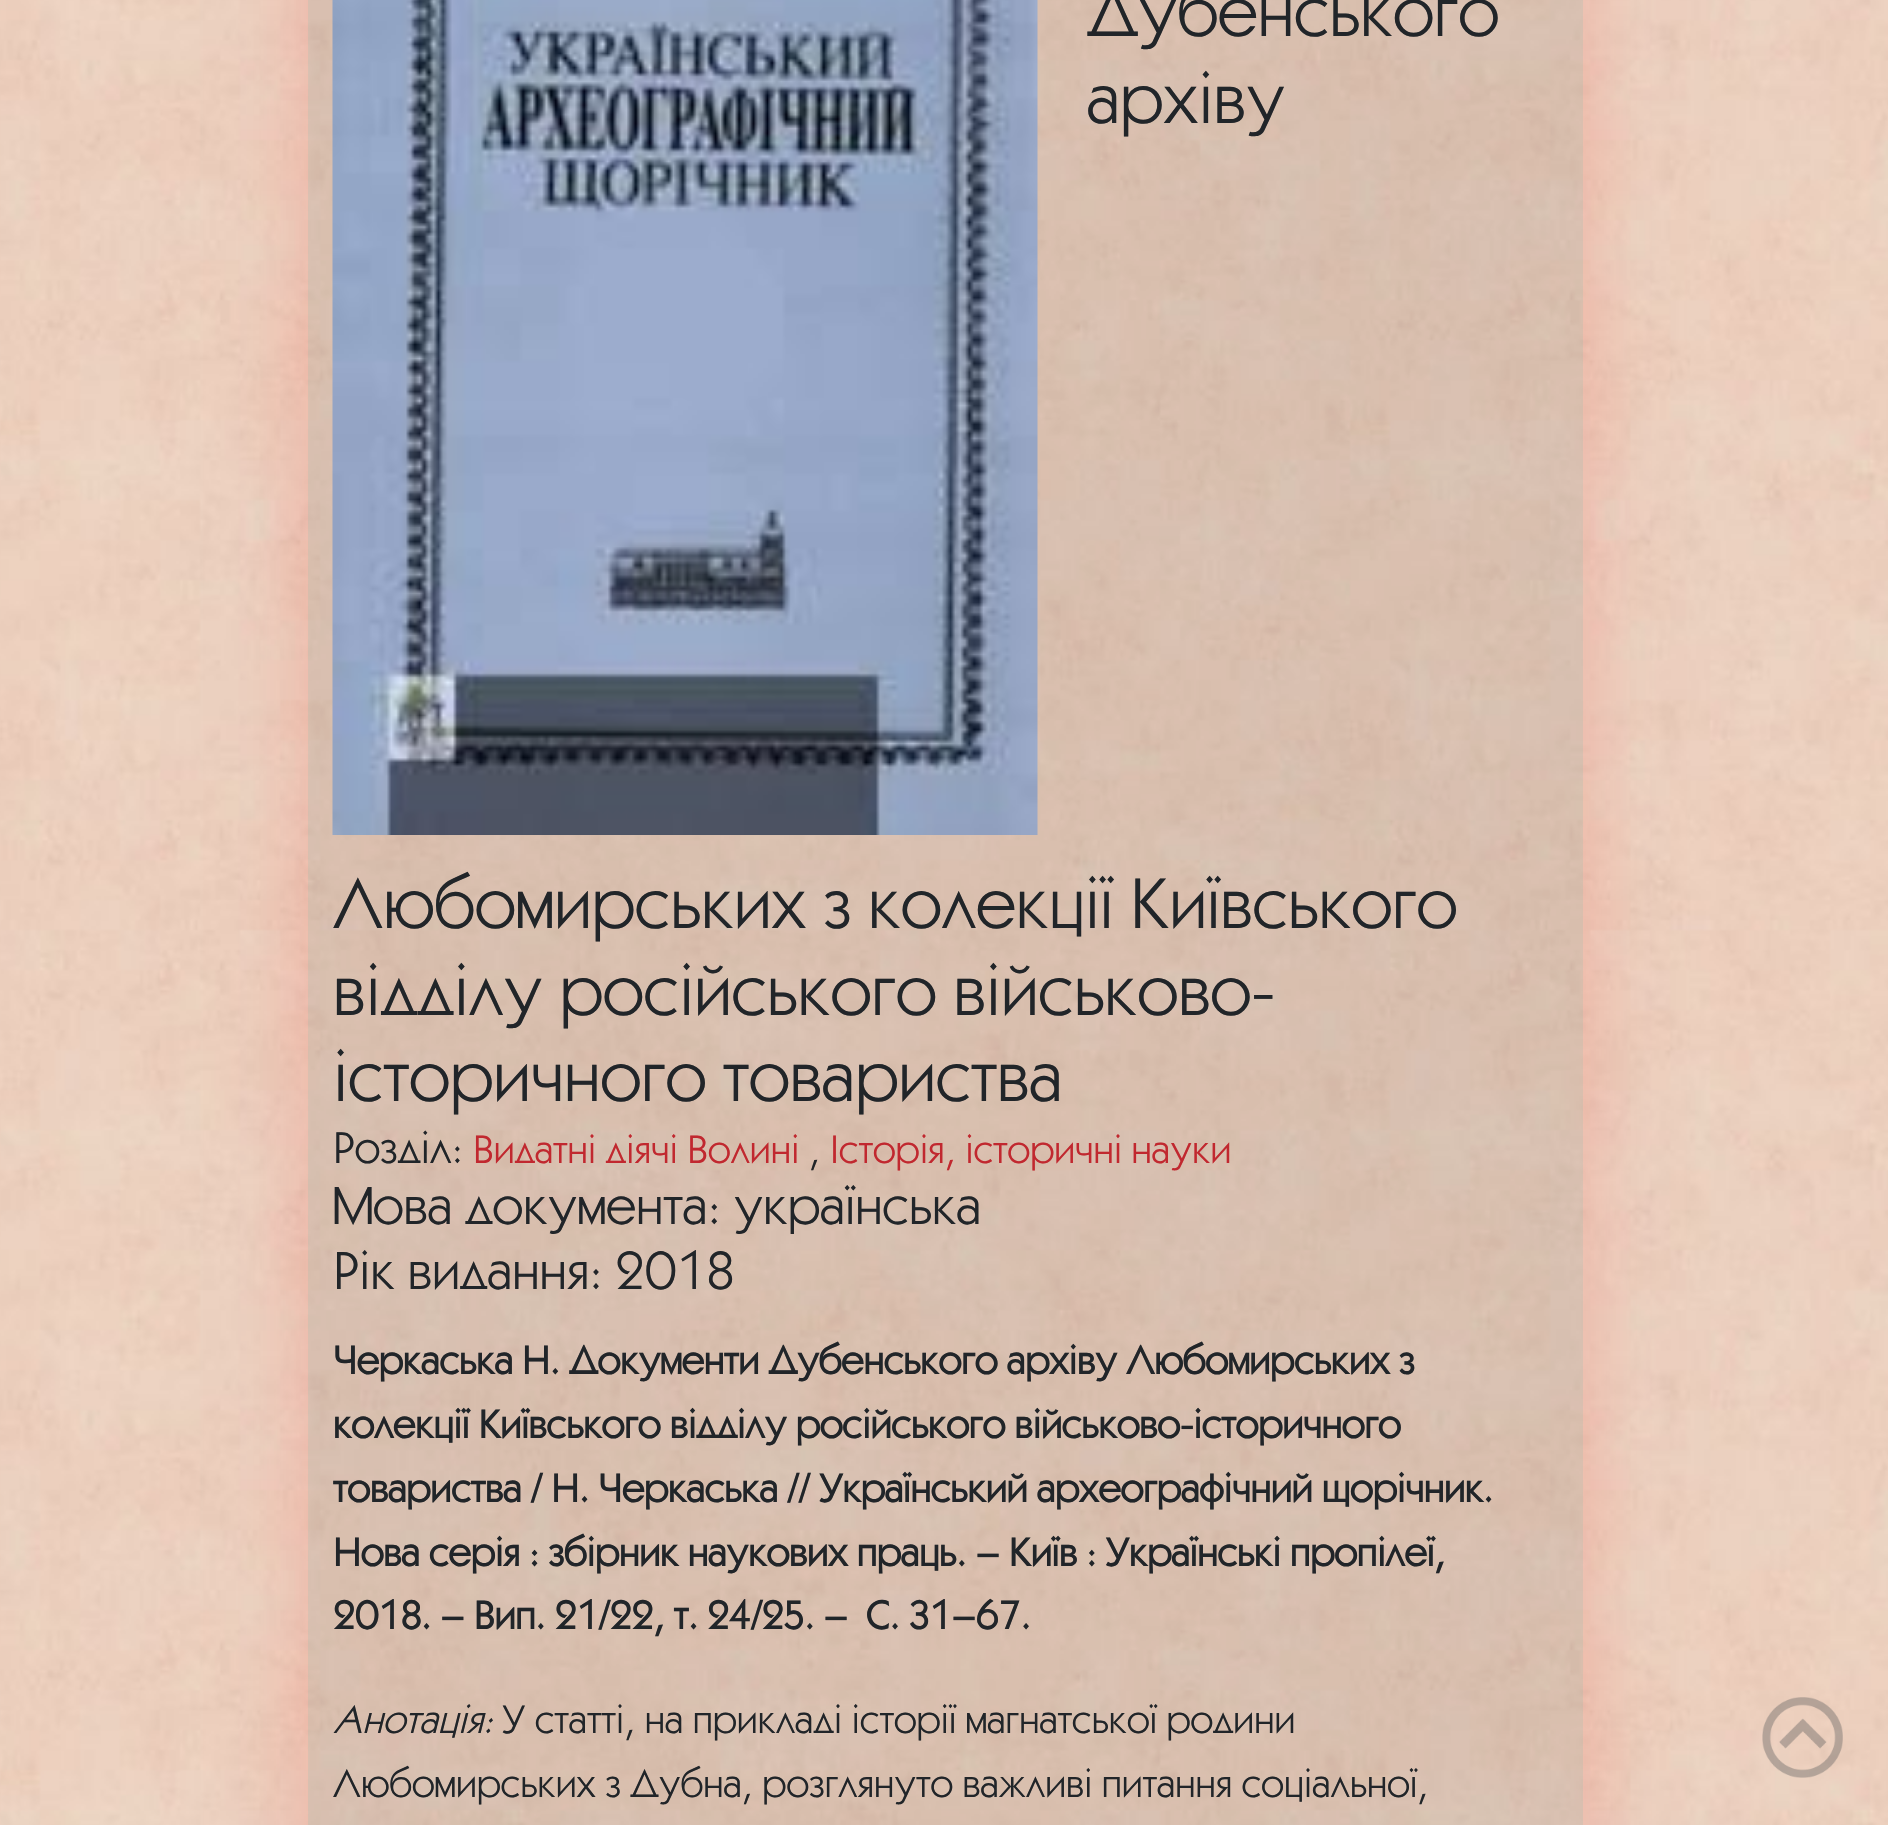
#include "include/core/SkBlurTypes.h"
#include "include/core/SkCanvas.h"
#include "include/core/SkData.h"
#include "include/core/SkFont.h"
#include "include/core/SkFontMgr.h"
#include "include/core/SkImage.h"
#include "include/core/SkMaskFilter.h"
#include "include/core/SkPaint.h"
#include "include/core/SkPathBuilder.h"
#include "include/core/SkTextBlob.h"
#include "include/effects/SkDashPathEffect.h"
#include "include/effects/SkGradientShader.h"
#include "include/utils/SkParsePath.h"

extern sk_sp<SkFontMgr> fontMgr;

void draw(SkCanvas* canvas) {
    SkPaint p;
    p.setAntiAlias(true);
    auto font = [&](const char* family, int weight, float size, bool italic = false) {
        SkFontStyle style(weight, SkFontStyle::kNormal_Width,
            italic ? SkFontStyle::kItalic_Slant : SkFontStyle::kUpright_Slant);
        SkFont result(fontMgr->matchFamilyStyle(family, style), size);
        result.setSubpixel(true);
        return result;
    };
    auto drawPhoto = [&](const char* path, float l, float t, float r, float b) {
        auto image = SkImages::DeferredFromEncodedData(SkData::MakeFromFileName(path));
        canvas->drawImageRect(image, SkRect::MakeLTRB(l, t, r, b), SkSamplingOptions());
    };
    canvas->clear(0xFFFFFFFF);
    drawPhoto("media/1.png", 0, 0, 1888, 1825);
    canvas->save();
    canvas->clipPath(SkPathBuilder(SkPathFillType::kEvenOdd).moveTo(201, 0).lineTo(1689, 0).lineTo(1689, 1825).lineTo(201, 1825).close().moveTo(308, -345).lineTo(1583, -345).lineTo(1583, 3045).lineTo(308, 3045).close().detach(), true);
    p.setColor(0x1FFF0000);
    p.setMaskFilter(SkMaskFilter::MakeBlur(kNormal_SkBlurStyle, 31));
    canvas->drawRect(SkRect::MakeLTRB(295, -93, 1595, 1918), p);
    p.setMaskFilter(nullptr);
    canvas->restore();
    p.setColor(0x14000000);
    canvas->drawRect(SkRect::MakeLTRB(308, 0, 1583, 1825), p);
    drawPhoto("media/2.png", 332, 0, 1038, 835);
    auto font1 = font("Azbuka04", 400, 72);
    p.setColor(0xFF212529);
    {
        const struct { const char* s; float x, y; } items[] = {
            {"Дубенського", 1087, 36},
            {"архіву", 1087, 123},
            {"Любомирських з колекції Київського", 333, 928},
            {"відділу російського військово-", 333, 1015},
            {"історичного товариства", 333, 1101},
        };
        for (auto [s, x, y] : items) {
            canvas->drawString(s, x, y, font1, p);
        }
    }
    auto font2 = font("Azbuka04", 400, 45);
    canvas->drawString("Розділ:", 333, 1163, font2, p);
    auto font3 = font("Azbuka04", 400, 40);
    p.setColor(0xFFC1282F);
    canvas->drawString("Видатні діячі Волині", 473, 1163, font3, p);
    p.setColor(0xFF212529);
    canvas->drawString(",", 809, 1163, font3, p);
    p.setColor(0xFFC1282F);
    canvas->drawString("Історія, історичні науки", 830, 1163, font3, p);
    auto font4 = font("Azbuka04", 400, 54);
    p.setColor(0xFF212529);
    canvas->drawString("Мова документа: українська", 333, 1224, font4, p);
    canvas->drawString("Рік видання: 2018", 333, 1289, font4, p);
    auto font5 = font("Azbuka04", 700, 40);
    {
        const struct { const char* s; float x, y; } items[] = {
            {"Черкаська Н. Документи Дубенського архіву Любомирських з", 333, 1374},
            {"колекції Київського відділу російського військово-історичного", 333, 1438},
            {"товариства / Н. Черкаська // Український археографічний щорічник.", 333, 1502},
            {"Нова серія : збірник наукових праць. – Київ : Українські пропілеї,", 333, 1566},
            {"2018. – Вип. 21/22, т. 24/25. –  С. 31–67.", 333, 1629},
        };
        for (auto [s, x, y] : items) {
            canvas->drawString(s, x, y, font5, p);
        }
    }
    auto font6 = font("Azbuka04", 400, 40, true);
    canvas->drawString("Анотація:", 333, 1733, font6, p);
    canvas->drawString("У статті, на прикладі історії магнатської родини", 502, 1733, font3, p);
    canvas->drawString("Любомирських з Дубна, розглянуто важливі питання соціальної,", 333, 1797, font3, p);
    drawPhoto("media/3.png", 1762, 1697, 1843, 1778);
}
